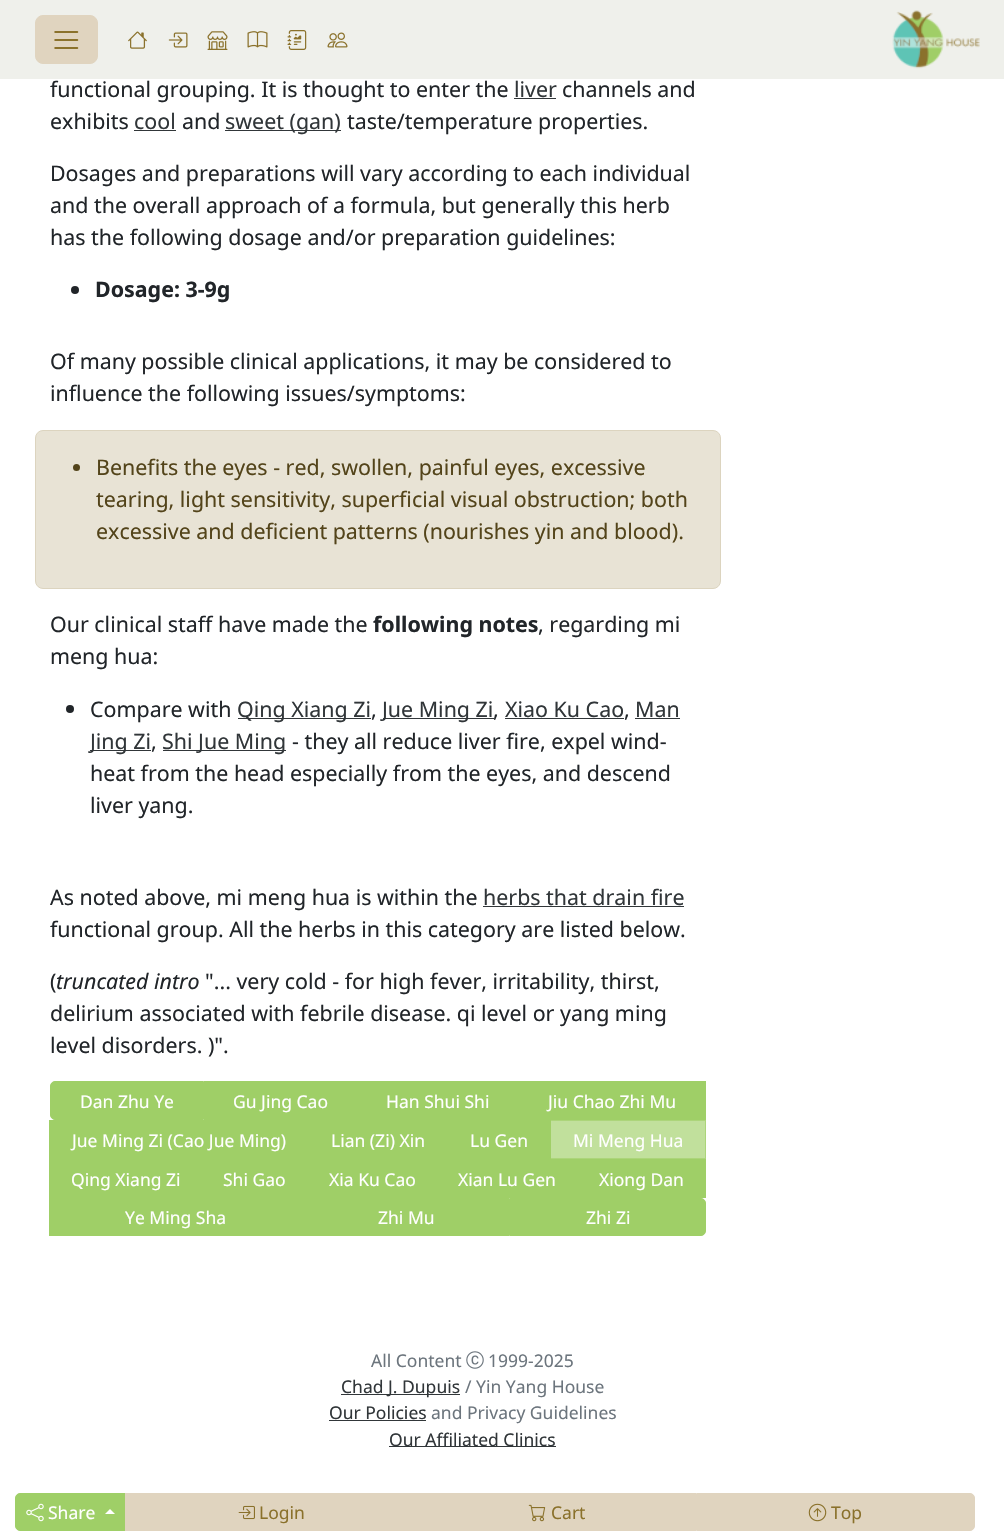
#include "include/core/SkBlurTypes.h"
#include "include/core/SkCanvas.h"
#include "include/core/SkData.h"
#include "include/core/SkFont.h"
#include "include/core/SkFontMgr.h"
#include "include/core/SkImage.h"
#include "include/core/SkMaskFilter.h"
#include "include/core/SkPaint.h"
#include "include/core/SkPathBuilder.h"
#include "include/core/SkTextBlob.h"
#include "include/effects/SkDashPathEffect.h"
#include "include/effects/SkGradientShader.h"
#include "include/utils/SkParsePath.h"

extern sk_sp<SkFontMgr> fontMgr;

void draw(SkCanvas* canvas) {
    SkPaint p;
    p.setAntiAlias(true);
    auto font = [&](const char* family, int weight, float size, bool italic = false) {
        SkFontStyle style(weight, SkFontStyle::kNormal_Width,
            italic ? SkFontStyle::kItalic_Slant : SkFontStyle::kUpright_Slant);
        SkFont result(fontMgr->matchFamilyStyle(family, style), size);
        result.setSubpixel(true);
        return result;
    };
    auto drawPhoto = [&](const char* path, float l, float t, float r, float b) {
        auto image = SkImages::DeferredFromEncodedData(SkData::MakeFromFileName(path));
        canvas->drawImageRect(image, SkRect::MakeLTRB(l, t, r, b), SkSamplingOptions());
    };
    canvas->clear(0xFFFFFFFF);
    p.setColor(0xFFC1E09C);
    canvas->drawRect(SkRect::MakeLTRB(551, 1120, 706, 1159), p);
    p.setColor(0xFFEFF0EB);
    canvas->drawRect(SkRect::MakeLTRB(0, 0, 1004, 79), p);
    p.setColor(0xFFE0D4BF);
    canvas->drawRoundRect(SkRect::MakeLTRB(35.5f, 15.5f, 97.5f, 63.5f), 7.5f, 7.5f, p);
    p.setStyle(SkPaint::kStroke_Style);
    p.setStrokeWidth(1);
    canvas->drawRoundRect(SkRect::MakeLTRB(35.5f, 15.5f, 97.5f, 63.5f), 7.5f, 7.5f, p);
    drawPhoto("media/1.png", 54, 31, 79, 49);
    drawPhoto("media/2.png", 128, 31, 147, 49);
    drawPhoto("media/3.png", 168, 32, 188, 48);
    drawPhoto("media/4.png", 207, 31, 228, 50);
    drawPhoto("media/5.png", 247, 31, 268, 48);
    drawPhoto("media/6.png", 287, 30, 307, 50);
    drawPhoto("media/7.png", 327, 32, 348, 48);
    drawPhoto("media/8.png", 892, 10, 980, 69);
    auto font1 = font("Noto Sans", 400, 21.4f);
    p.setStyle(SkPaint::kFill_Style);
    p.setColor(0xFF212529);
    canvas->drawString("functional grouping. It is thought to enter the", 50, 97, font1, p);
    p.setColor(0xFF313639);
    canvas->drawString("liver", 514, 97, font1, p);
    canvas->drawRect(SkRect::MakeLTRB(514, 98, 556, 99), p);
    p.setColor(0xFF212529);
    canvas->drawString("channels and", 562, 97, font1, p);
    canvas->drawString("exhibits", 50, 129, font1, p);
    p.setColor(0xFF313639);
    canvas->drawString("cool", 134, 129, font1, p);
    canvas->drawRect(SkRect::MakeLTRB(134, 130, 176, 131), p);
    p.setColor(0xFF212529);
    canvas->drawString("and", 182, 129, font1, p);
    p.setColor(0xFF313639);
    canvas->drawRect(SkRect::MakeLTRB(225, 130, 341, 131), p);
    canvas->drawString("sweet (gan)", 225, 129, font1, p);
    p.setColor(0xFF212529);
    {
        const struct { const char* s; float x, y; } items[] = {
            {"taste/temperature properties.", 347, 129},
            {"Dosages and preparations will vary according to each individual", 50, 181},
            {"and the overall approach of a formula, but generally this herb", 50, 213},
            {"has the following dosage and/or preparation guidelines:", 50, 245},
        };
        for (auto [s, x, y] : items) {
            canvas->drawString(s, x, y, font1, p);
        }
    }
    canvas->drawCircle(75, 290, 4, p);
    auto font2 = font("Noto Sans", 700, 21.4f);
    canvas->drawString("Dosage: 3-9g", 95, 297, font2, p);
    canvas->drawString("Of many possible clinical applications, it may be considered to", 50, 369, font1, p);
    canvas->drawString("influence the following issues/symptoms:", 50, 401, font1, p);
    p.setColor(0xFFE8E3D5);
    canvas->drawRoundRect(SkRect::MakeLTRB(35.5f, 430.5f, 720.5f, 588.5f), 7.5f, 7.5f, p);
    p.setStyle(SkPaint::kStroke_Style);
    p.setColor(0xFFDCD4BF);
    canvas->drawRoundRect(SkRect::MakeLTRB(35.5f, 430.5f, 720.5f, 588.5f), 7.5f, 7.5f, p);
    p.setStyle(SkPaint::kFill_Style);
    p.setColor(0xFF53441A);
    canvas->drawCircle(76.5f, 467.5f, 3.5f, p);
    {
        const struct { const char* s; float x, y; } items[] = {
            {"Benefits the eyes - red, swollen, painful eyes, excessive", 96, 475},
            {"tearing, light sensitivity, superficial visual obstruction; both", 96, 507},
            {"excessive and deficient patterns (nourishes yin and blood).", 96, 539},
        };
        for (auto [s, x, y] : items) {
            canvas->drawString(s, x, y, font1, p);
        }
    }
    p.setColor(0xFF212529);
    canvas->drawString("Our clinical staff have made the", 50, 632, font1, p);
    canvas->drawString("following notes", 373, 632, font2, p);
    canvas->drawString(", regarding mi", 538, 632, font1, p);
    canvas->drawString("meng hua:", 50, 664, font1, p);
    canvas->drawCircle(70, 709, 4, p);
    canvas->drawString("Compare with", 90, 717, font1, p);
    p.setColor(0xFF313639);
    canvas->drawRect(SkRect::MakeLTRB(238, 718, 371, 719), p);
    canvas->drawString("Qing Xiang Zi", 237, 717, font1, p);
    canvas->drawRect(SkRect::MakeLTRB(383, 718, 494, 719), p);
    canvas->drawString("Jue Ming Zi", 382, 717, font1, p);
    canvas->drawString("Xiao Ku Cao", 505, 717, font1, p);
    canvas->drawRect(SkRect::MakeLTRB(505, 718, 624, 719), p);
    canvas->drawString("Man", 635, 717, font1, p);
    canvas->drawRect(SkRect::MakeLTRB(635, 718, 680, 719), p);
    p.setColor(0xFF212529);
    {
        const struct { const char* s; float x, y; } items[] = {
            {",", 371, 717},
            {",", 493, 717},
            {",", 624, 717},
        };
        for (auto [s, x, y] : items) {
            canvas->drawString(s, x, y, font1, p);
        }
    }
    p.setColor(0xFF313639);
    canvas->drawRect(SkRect::MakeLTRB(90, 750, 151, 751), p);
    canvas->drawString("Jing Zi", 90, 749, font1, p);
    p.setColor(0xFF212529);
    canvas->drawString(",", 151, 749, font1, p);
    p.setColor(0xFF313639);
    canvas->drawRect(SkRect::MakeLTRB(163, 750, 286, 751), p);
    canvas->drawString("Shi Jue Ming", 162, 749, font1, p);
    p.setColor(0xFF212529);
    {
        const struct { const char* s; float x, y; } items[] = {
            {"- they all reduce liver fire, expel wind-", 292, 749},
            {"heat from the head especially from the eyes, and descend", 90, 781},
            {"liver yang.", 90, 813},
            {"As noted above, mi meng hua is within the", 50, 905},
        };
        for (auto [s, x, y] : items) {
            canvas->drawString(s, x, y, font1, p);
        }
    }
    p.setColor(0xFF313639);
    canvas->drawString("herbs that drain fire", 483, 905, font1, p);
    canvas->drawRect(SkRect::MakeLTRB(483, 906, 684, 907), p);
    p.setColor(0xFF212529);
    canvas->drawString("functional group. All the herbs in this category are listed below.", 50, 937, font1, p);
    canvas->drawString("(", 50, 989, font1, p);
    auto font3 = font("Noto Sans", 400, 21.4f, true);
    canvas->drawString("truncated intro", 56, 989, font3, p);
    {
        const struct { const char* s; float x, y; } items[] = {
            {"\"... very cold - for high fever, irritability, thirst,", 205, 989},
            {"delirium associated with febrile disease. qi level or yang ming", 50, 1021},
            {"level disorders. )\".", 50, 1053},
        };
        for (auto [s, x, y] : items) {
            canvas->drawString(s, x, y, font1, p);
        }
    }
    p.setColor(0xFF9FCF67);
    canvas->drawPath(SkPathBuilder().moveTo(55, 1081.5f).lineTo(203.5f, 1081.5f).lineTo(203.5f, 1119.5f).lineTo(55, 1119.5f).cubicTo(52.5f, 1119.5f, 50.5f, 1117.5f, 50.5f, 1115).lineTo(50.5f, 1086).cubicTo(50.5f, 1083.5f, 52.5f, 1081.5f, 55, 1081.5f).close().detach(), p);
    p.setStyle(SkPaint::kStroke_Style);
    canvas->drawPath(SkPathBuilder().moveTo(55, 1081.5f).lineTo(203.5f, 1081.5f).lineTo(203.5f, 1119.5f).lineTo(55, 1119.5f).cubicTo(52.5f, 1119.5f, 50.5f, 1117.5f, 50.5f, 1115).lineTo(50.5f, 1086).cubicTo(50.5f, 1083.5f, 52.5f, 1081.5f, 55, 1081.5f).close().detach(), p);
    auto font4 = font("Noto Sans", 400, 17.5f);
    p.setStyle(SkPaint::kFill_Style);
    p.setColor(0xFFFFFFFF);
    canvas->drawString("Dan Zhu Ye", 80, 1108, font4, p);
    p.setColor(0xFF9FCF67);
    canvas->drawRect(SkRect::MakeLTRB(204, 1081, 706, 1120), p);
    p.setColor(0xFFFFFFFF);
    {
        const struct { const char* s; float x, y; } items[] = {
            {"Gu Jing Cao", 233, 1108},
            {"Han Shui Shi", 386, 1108},
            {"Jiu Chao Zhi Mu", 548, 1108},
        };
        for (auto [s, x, y] : items) {
            canvas->drawString(s, x, y, font4, p);
        }
    }
    p.setColor(0xFF9FCF67);
    canvas->drawRect(SkRect::MakeLTRB(49, 1120, 551, 1159), p);
    p.setColor(0xFFFFFFFF);
    {
        const struct { const char* s; float x, y; } items[] = {
            {"Jue Ming Zi (Cao Jue Ming)", 72, 1147},
            {"Lian (Zi) Xin", 331, 1147},
            {"Lu Gen", 470, 1147},
        };
        for (auto [s, x, y] : items) {
            canvas->drawString(s, x, y, font4, p);
        }
    }
    p.setStyle(SkPaint::kStroke_Style);
    p.setColor(0xA69FCF67);
    canvas->drawRect(SkRect::MakeLTRB(550.5f, 1120.5f, 705.5f, 1158.5f), p);
    p.setStyle(SkPaint::kFill_Style);
    p.setColor(0xFFFFFFFF);
    canvas->drawString("Mi Meng Hua", 573, 1147, font4, p);
    p.setColor(0xFF9FCF67);
    canvas->drawRect(SkRect::MakeLTRB(49, 1159, 706, 1198), p);
    p.setColor(0xFFFFFFFF);
    {
        const struct { const char* s; float x, y; } items[] = {
            {"Qing Xiang Zi", 71, 1186},
            {"Shi Gao", 223, 1186},
            {"Xia Ku Cao", 329, 1186},
            {"Xian Lu Gen", 458, 1186},
            {"Xiong Dan", 599, 1186},
        };
        for (auto [s, x, y] : items) {
            canvas->drawString(s, x, y, font4, p);
        }
    }
    p.setColor(0xFF9FCF67);
    canvas->drawRect(SkRect::MakeLTRB(49, 1198, 509, 1236), p);
    p.setColor(0xFFFFFFFF);
    canvas->drawString("Ye Ming Sha", 125, 1224, font4, p);
    canvas->drawString("Zhi Mu", 378, 1224, font4, p);
    p.setColor(0xFF9FCF67);
    canvas->drawPath(SkPathBuilder().moveTo(509.5f, 1198.5f).lineTo(701, 1198.5f).cubicTo(703.5f, 1198.5f, 705.5f, 1200.5f, 705.5f, 1203).lineTo(705.5f, 1231).cubicTo(705.5f, 1233.5f, 703.5f, 1235.5f, 701, 1235.5f).lineTo(509.5f, 1235.5f).close().detach(), p);
    p.setStyle(SkPaint::kStroke_Style);
    canvas->drawPath(SkPathBuilder().moveTo(509.5f, 1198.5f).lineTo(701, 1198.5f).cubicTo(703.5f, 1198.5f, 705.5f, 1200.5f, 705.5f, 1203).lineTo(705.5f, 1231).cubicTo(705.5f, 1233.5f, 703.5f, 1235.5f, 701, 1235.5f).lineTo(509.5f, 1235.5f).close().detach(), p);
    p.setStyle(SkPaint::kFill_Style);
    p.setColor(0xFFFFFFFF);
    canvas->drawString("Zhi Zi", 586, 1224, font4, p);
    p.setColor(0xFF6C757D);
    canvas->drawString("All Content", 371, 1367, font4, p);
    drawPhoto("media/9.png", 466, 1351, 484, 1369);
    canvas->drawString("1999-2025", 488, 1367, font4, p);
    p.setColor(0xFF313639);
    canvas->drawRect(SkRect::MakeLTRB(341, 1394, 460, 1395), p);
    canvas->drawString("Chad J. Dupuis", 341, 1393, font4, p);
    p.setColor(0xFF6C757D);
    canvas->drawString("/ Yin Yang House", 465, 1393, font4, p);
    p.setColor(0xFF313639);
    canvas->drawString("Our Policies", 329, 1419, font4, p);
    canvas->drawRect(SkRect::MakeLTRB(329, 1420, 426, 1421), p);
    p.setColor(0xFF6C757D);
    canvas->drawString("and Privacy Guidelines", 431, 1419, font4, p);
    p.setColor(0xFF313639);
    canvas->drawRect(SkRect::MakeLTRB(389, 1446, 556, 1447), p);
    canvas->drawString("Our Affiliated Clinics", 389, 1446, font4, p);
    p.setColor(0xFF9FCF67);
    canvas->drawPath(SkPathBuilder().moveTo(20, 1493.5f).lineTo(125.5f, 1493.5f).lineTo(125.5f, 1530.5f).lineTo(20, 1530.5f).cubicTo(17.5f, 1530.5f, 15.5f, 1528.5f, 15.5f, 1526).lineTo(15.5f, 1498).cubicTo(15.5f, 1495.5f, 17.5f, 1493.5f, 20, 1493.5f).close().detach(), p);
    p.setStyle(SkPaint::kStroke_Style);
    canvas->drawPath(SkPathBuilder().moveTo(20, 1493.5f).lineTo(125.5f, 1493.5f).lineTo(125.5f, 1530.5f).lineTo(20, 1530.5f).cubicTo(17.5f, 1530.5f, 15.5f, 1528.5f, 15.5f, 1526).lineTo(15.5f, 1498).cubicTo(15.5f, 1495.5f, 17.5f, 1493.5f, 20, 1493.5f).close().detach(), p);
    drawPhoto("media/10.png", 26, 1503, 44, 1522);
    p.setStyle(SkPaint::kFill_Style);
    p.setColor(0xFFFFFFFF);
    canvas->drawString("Share", 48, 1519, font4, p);
    canvas->drawPath(SkPathBuilder().moveTo(115, 1514).lineTo(105, 1514).lineTo(110, 1509).close().detach(), p);
    p.setColor(0xFFE0D4BF);
    canvas->drawRect(SkRect::MakeLTRB(125, 1493, 696, 1531), p);
    drawPhoto("media/11.png", 238, 1505, 255, 1520);
    p.setColor(0xFF8A712B);
    canvas->drawString("Login", 259, 1519, font4, p);
    drawPhoto("media/12.png", 528, 1504, 546, 1522);
    canvas->drawString("Cart", 551, 1519, font4, p);
    p.setColor(0xFFE0D4BF);
    canvas->drawPath(SkPathBuilder().moveTo(696.5f, 1493.5f).lineTo(970, 1493.5f).cubicTo(972.5f, 1493.5f, 974.5f, 1495.5f, 974.5f, 1498).lineTo(974.5f, 1526).cubicTo(974.5f, 1528.5f, 972.5f, 1530.5f, 970, 1530.5f).lineTo(696.5f, 1530.5f).close().detach(), p);
    p.setStyle(SkPaint::kStroke_Style);
    canvas->drawPath(SkPathBuilder().moveTo(696.5f, 1493.5f).lineTo(970, 1493.5f).cubicTo(972.5f, 1493.5f, 974.5f, 1495.5f, 974.5f, 1498).lineTo(974.5f, 1526).cubicTo(974.5f, 1528.5f, 972.5f, 1530.5f, 970, 1530.5f).lineTo(696.5f, 1530.5f).close().detach(), p);
    drawPhoto("media/13.png", 808, 1503, 827, 1522);
    p.setStyle(SkPaint::kFill_Style);
    p.setColor(0xFF8A712B);
    canvas->drawString("Top", 831, 1519, font4, p);
}
